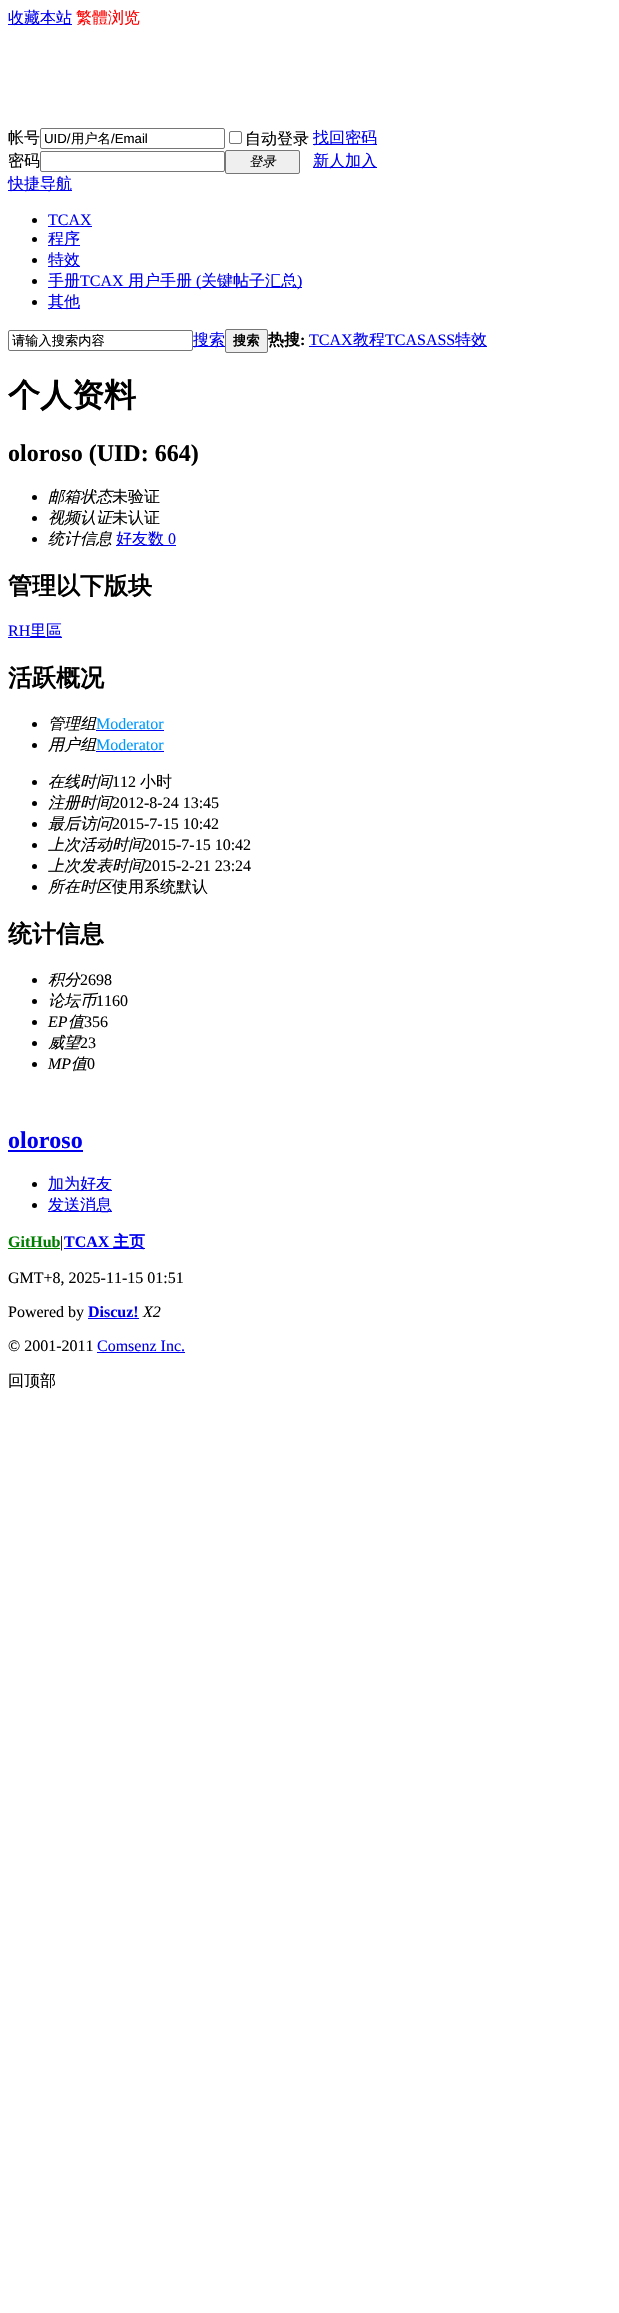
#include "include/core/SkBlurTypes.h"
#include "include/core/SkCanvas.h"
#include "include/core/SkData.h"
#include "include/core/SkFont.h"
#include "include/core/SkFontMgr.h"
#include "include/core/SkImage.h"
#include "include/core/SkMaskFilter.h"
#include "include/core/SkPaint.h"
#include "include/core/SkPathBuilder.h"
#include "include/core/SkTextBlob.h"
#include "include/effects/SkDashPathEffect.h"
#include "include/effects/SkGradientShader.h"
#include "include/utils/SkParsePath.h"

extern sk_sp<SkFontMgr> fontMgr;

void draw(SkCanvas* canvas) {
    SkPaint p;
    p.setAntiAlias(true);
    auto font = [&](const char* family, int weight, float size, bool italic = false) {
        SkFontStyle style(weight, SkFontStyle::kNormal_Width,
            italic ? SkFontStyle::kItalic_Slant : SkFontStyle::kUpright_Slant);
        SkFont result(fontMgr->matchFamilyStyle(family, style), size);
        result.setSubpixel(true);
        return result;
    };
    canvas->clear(0xFFFFFFFF);
    p.setColor(0xFF0000EE);
    canvas->drawRect(SkRect::MakeLTRB(8, 24, 72, 25), p);
    auto font1 = font("WenQuanYi Zen Hei", 500, 16);
    canvas->drawString("收藏本站", 8, 23, font1, p);
    p.setColor(0xFFFF0000);
    canvas->drawString("繁體浏览", 76, 23, font1, p);
    p.setColor(0xFF000000);
    canvas->drawString("帐号", 8, 143, font1, p);
    p.setStyle(SkPaint::kStroke_Style);
    p.setStrokeWidth(1);
    p.setColor(0xFF767676);
    canvas->drawRoundRect(SkRect::MakeLTRB(40.5f, 128.5f, 224.5f, 148.5f), 1.5f, 1.5f, p);
    auto font2 = font("Liberation Sans", 400, 13.25f);
    p.setStyle(SkPaint::kFill_Style);
    p.setColor(0xFF000000);
    canvas->drawString("UID/", 44, 143, font2, p);
    auto font3 = font("WenQuanYi Zen Hei", 500, 13.25f);
    canvas->drawString("用户名", 71, 143, font3, p);
    canvas->drawString("/Email", 111, 143, font2, p);
    p.setStyle(SkPaint::kStroke_Style);
    p.setColor(0xFF767676);
    canvas->drawRoundRect(SkRect::MakeLTRB(229.5f, 131.5f, 241.5f, 143.5f), 1.5f, 1.5f, p);
    p.setStyle(SkPaint::kFill_Style);
    p.setColor(0xFF000000);
    canvas->drawString("自动登录", 245, 144, font1, p);
    p.setColor(0xFF0000EE);
    canvas->drawRect(SkRect::MakeLTRB(313, 144, 377, 145), p);
    canvas->drawString("找回密码", 313, 143, font1, p);
    p.setColor(0xFF000000);
    canvas->drawString("密码", 8, 166, font1, p);
    p.setStyle(SkPaint::kStroke_Style);
    p.setColor(0xFF767676);
    canvas->drawRoundRect(SkRect::MakeLTRB(40.5f, 151.5f, 224.5f, 171.5f), 1.5f, 1.5f, p);
    p.setStyle(SkPaint::kFill_Style);
    p.setColor(0xFFEFEFEF);
    canvas->drawRoundRect(SkRect::MakeLTRB(225.5f, 150.5f, 299.5f, 173.5f), 1.5f, 1.5f, p);
    p.setStyle(SkPaint::kStroke_Style);
    p.setColor(0xFF767676);
    canvas->drawRoundRect(SkRect::MakeLTRB(225.5f, 150.5f, 299.5f, 173.5f), 1.5f, 1.5f, p);
    auto font4 = font("WenQuanYi Zen Hei", 500, 13.25f, true);
    p.setStyle(SkPaint::kFill_Style);
    p.setColor(0xFF000000);
    canvas->drawString("登录", 249, 166, font4, p);
    p.setColor(0xFF0000EE);
    canvas->drawRect(SkRect::MakeLTRB(313, 167, 377, 168), p);
    canvas->drawString("新人加入", 313, 166, font1, p);
    canvas->drawRect(SkRect::MakeLTRB(8, 190, 72, 191), p);
    canvas->drawString("快捷导航", 8, 189, font1, p);
    p.setColor(0xFF000000);
    canvas->drawCircle(34.5f, 220.5f, 2.5f, p);
    auto font5 = font("Liberation Serif", 400, 16);
    p.setColor(0xFF0000EE);
    canvas->drawString("TCAX", 48, 225, font5, p);
    canvas->drawRect(SkRect::MakeLTRB(48, 226, 92, 227), p);
    p.setColor(0xFF000000);
    canvas->drawCircle(34.5f, 239.5f, 2.5f, p);
    p.setColor(0xFF0000EE);
    canvas->drawRect(SkRect::MakeLTRB(48, 245, 80, 246), p);
    canvas->drawString("程序", 48, 244, font1, p);
    p.setColor(0xFF000000);
    canvas->drawCircle(34.5f, 260.5f, 2.5f, p);
    p.setColor(0xFF0000EE);
    canvas->drawRect(SkRect::MakeLTRB(48, 266, 80, 267), p);
    canvas->drawString("特效", 48, 265, font1, p);
    p.setColor(0xFF000000);
    canvas->drawCircle(34.5f, 281.5f, 2.5f, p);
    p.setColor(0xFF0000EE);
    canvas->drawRect(SkRect::MakeLTRB(48, 287, 302, 288), p);
    canvas->drawString("手册", 48, 286, font1, p);
    canvas->drawString("TCAX", 80, 286, font5, p);
    canvas->drawString("用户手册", 128, 286, font1, p);
    canvas->drawString("(", 196, 286, font5, p);
    canvas->drawString("关键帖子汇总", 201, 286, font1, p);
    canvas->drawString(")", 297, 286, font5, p);
    p.setColor(0xFF000000);
    canvas->drawCircle(34.5f, 302.5f, 2.5f, p);
    p.setColor(0xFF0000EE);
    canvas->drawRect(SkRect::MakeLTRB(48, 308, 80, 309), p);
    canvas->drawString("其他", 48, 307, font1, p);
    p.setStyle(SkPaint::kStroke_Style);
    p.setColor(0xFF767676);
    canvas->drawRoundRect(SkRect::MakeLTRB(8.5f, 330.5f, 192.5f, 350.5f), 1.5f, 1.5f, p);
    p.setStyle(SkPaint::kFill_Style);
    p.setColor(0xFF000000);
    canvas->drawString("请输入搜索内容", 12, 345, font3, p);
    p.setColor(0xFF0000EE);
    canvas->drawRect(SkRect::MakeLTRB(193, 346, 225, 347), p);
    canvas->drawString("搜索", 193, 345, font1, p);
    p.setColor(0xFFEFEFEF);
    canvas->drawRoundRect(SkRect::MakeLTRB(225.5f, 329.5f, 267.5f, 352.5f), 1.5f, 1.5f, p);
    p.setStyle(SkPaint::kStroke_Style);
    p.setColor(0xFF767676);
    canvas->drawRoundRect(SkRect::MakeLTRB(225.5f, 329.5f, 267.5f, 352.5f), 1.5f, 1.5f, p);
    auto font6 = font("WenQuanYi Zen Hei", 700, 13.25f);
    p.setStyle(SkPaint::kFill_Style);
    p.setColor(0xFF000000);
    canvas->drawString("搜索", 233, 345, font6, p);
    auto font7 = font("WenQuanYi Zen Hei", 700, 16);
    canvas->drawString("热搜", 268, 345, font7, p);
    auto font8 = font("Liberation Serif", 700, 16);
    canvas->drawString(":", 300, 345, font8, p);
    p.setColor(0xFF0000EE);
    canvas->drawString("TCAX", 309, 345, font5, p);
    canvas->drawRect(SkRect::MakeLTRB(309, 346, 487, 347), p);
    canvas->drawString("教程", 353, 345, font1, p);
    canvas->drawString("TCASASS", 385, 345, font5, p);
    canvas->drawString("特效", 455, 345, font1, p);
    auto font9 = font("WenQuanYi Zen Hei", 700, 32);
    p.setColor(0xFF000000);
    canvas->drawString("个人资料", 8, 406, font9, p);
    auto font10 = font("Liberation Serif", 700, 24);
    canvas->drawString("oloroso (UID: 664)", 8, 461, font10, p);
    canvas->drawCircle(34.5f, 497.5f, 2.5f, p);
    auto font11 = font("WenQuanYi Zen Hei", 500, 16, true);
    canvas->drawString("邮箱状态", 48, 502, font11, p);
    canvas->drawString("未验证", 112, 502, font1, p);
    canvas->drawCircle(34.5f, 518.5f, 2.5f, p);
    canvas->drawString("视频认证", 48, 523, font11, p);
    canvas->drawString("未认证", 112, 523, font1, p);
    canvas->drawCircle(34.5f, 539.5f, 2.5f, p);
    canvas->drawString("统计信息", 48, 544, font11, p);
    p.setColor(0xFF0000EE);
    canvas->drawRect(SkRect::MakeLTRB(116, 545, 176, 546), p);
    canvas->drawString("好友数", 116, 544, font1, p);
    canvas->drawString("0", 168, 544, font5, p);
    auto font12 = font("WenQuanYi Zen Hei", 700, 24);
    p.setColor(0xFF000000);
    canvas->drawString("管理以下版块", 8, 594, font12, p);
    p.setColor(0xFF0000EE);
    canvas->drawString("RH", 8, 636, font5, p);
    canvas->drawRect(SkRect::MakeLTRB(8, 637, 62, 638), p);
    canvas->drawString("里區", 30, 636, font1, p);
    p.setColor(0xFF000000);
    canvas->drawString("活跃概况", 8, 686, font12, p);
    canvas->drawCircle(34.5f, 724.5f, 2.5f, p);
    canvas->drawString("管理组", 48, 729, font11, p);
    p.setColor(0xFF0099FF);
    canvas->drawString("Moderator", 96, 729, font5, p);
    p.setColor(0xFF0000EE);
    canvas->drawRect(SkRect::MakeLTRB(96, 730, 164, 731), p);
    p.setColor(0xFF000000);
    canvas->drawCircle(34.5f, 745.5f, 2.5f, p);
    canvas->drawString("用户组", 48, 750, font11, p);
    p.setColor(0xFF0099FF);
    canvas->drawString("Moderator", 96, 750, font5, p);
    p.setColor(0xFF0000EE);
    canvas->drawRect(SkRect::MakeLTRB(96, 751, 164, 752), p);
    p.setColor(0xFF000000);
    canvas->drawCircle(34.5f, 782.5f, 2.5f, p);
    canvas->drawString("在线时间", 48, 787, font11, p);
    canvas->drawString("112", 112, 787, font5, p);
    canvas->drawString("小时", 140, 787, font1, p);
    canvas->drawCircle(34.5f, 803.5f, 2.5f, p);
    canvas->drawString("注册时间", 48, 808, font11, p);
    canvas->drawString("2012-8-24 13:45", 112, 808, font5, p);
    canvas->drawCircle(34.5f, 824.5f, 2.5f, p);
    canvas->drawString("最后访问", 48, 829, font11, p);
    canvas->drawString("2015-7-15 10:42", 112, 829, font5, p);
    canvas->drawCircle(34.5f, 845.5f, 2.5f, p);
    canvas->drawString("上次活动时间", 48, 850, font11, p);
    canvas->drawString("2015-7-15 10:42", 144, 850, font5, p);
    canvas->drawCircle(34.5f, 866.5f, 2.5f, p);
    canvas->drawString("上次发表时间", 48, 871, font11, p);
    canvas->drawString("2015-2-21 23:24", 144, 871, font5, p);
    canvas->drawCircle(34.5f, 887.5f, 2.5f, p);
    canvas->drawString("所在时区", 48, 892, font11, p);
    canvas->drawString("使用系统默认", 112, 892, font1, p);
    canvas->drawString("统计信息", 8, 942, font12, p);
    canvas->drawCircle(34.5f, 980.5f, 2.5f, p);
    canvas->drawString("积分", 48, 985, font11, p);
    canvas->drawString("2698", 80, 985, font5, p);
    canvas->drawCircle(34.5f, 1001.5f, 2.5f, p);
    canvas->drawString("论坛币", 48, 1006, font11, p);
    canvas->drawString("1160", 96, 1006, font5, p);
    canvas->drawCircle(34.5f, 1022.5f, 2.5f, p);
    auto font13 = font("Liberation Serif", 400, 16, true);
    canvas->drawString("EP", 48, 1027, font13, p);
    canvas->drawString("值", 68, 1027, font11, p);
    canvas->drawString("356", 84, 1027, font5, p);
    canvas->drawCircle(34.5f, 1043.5f, 2.5f, p);
    canvas->drawString("威望", 48, 1048, font11, p);
    canvas->drawString("23", 80, 1048, font5, p);
    canvas->drawCircle(34.5f, 1064.5f, 2.5f, p);
    canvas->drawString("MP", 48, 1069, font13, p);
    canvas->drawString("值", 71, 1069, font11, p);
    canvas->drawString("0", 87, 1069, font5, p);
    p.setColor(0xFF0000EE);
    canvas->drawString("oloroso", 8, 1148, font10, p);
    canvas->drawRect(SkRect::MakeLTRB(8, 1150, 83, 1152), p);
    p.setColor(0xFF000000);
    canvas->drawCircle(34.5f, 1184.5f, 2.5f, p);
    p.setColor(0xFF0000EE);
    canvas->drawRect(SkRect::MakeLTRB(48, 1190, 112, 1191), p);
    canvas->drawString("加为好友", 48, 1189, font1, p);
    p.setColor(0xFF000000);
    canvas->drawCircle(34.5f, 1205.5f, 2.5f, p);
    p.setColor(0xFF0000EE);
    canvas->drawRect(SkRect::MakeLTRB(48, 1211, 112, 1212), p);
    canvas->drawString("发送消息", 48, 1210, font1, p);
    p.setColor(0xFF008000);
    canvas->drawString("GitHub", 8, 1247, font8, p);
    canvas->drawRect(SkRect::MakeLTRB(8, 1248, 60, 1249), p);
    p.setColor(0xFF000000);
    canvas->drawString("|", 60, 1247, font5, p);
    p.setColor(0xFF0000EE);
    canvas->drawString("TCAX", 64, 1247, font8, p);
    canvas->drawRect(SkRect::MakeLTRB(64, 1248, 145, 1249), p);
    canvas->drawString("主页", 113, 1247, font7, p);
    p.setColor(0xFF000000);
    canvas->drawString("GMT+8, 2025-11-15 01:51", 8, 1283, font5, p);
    canvas->drawString("Powered by", 8, 1317, font5, p);
    p.setColor(0xFF0000EE);
    canvas->drawString("Discuz!", 88, 1317, font8, p);
    canvas->drawRect(SkRect::MakeLTRB(88, 1318, 139, 1319), p);
    p.setColor(0xFF000000);
    canvas->drawString("X2", 143, 1317, font13, p);
    canvas->drawString("© 2001-2011", 8, 1351, font5, p);
    p.setColor(0xFF0000EE);
    canvas->drawString("Comsenz Inc.", 97, 1351, font5, p);
    canvas->drawRect(SkRect::MakeLTRB(97, 1352, 185, 1353), p);
    p.setColor(0xFF000000);
    canvas->drawString("回顶部", 8, 1386, font1, p);
}
